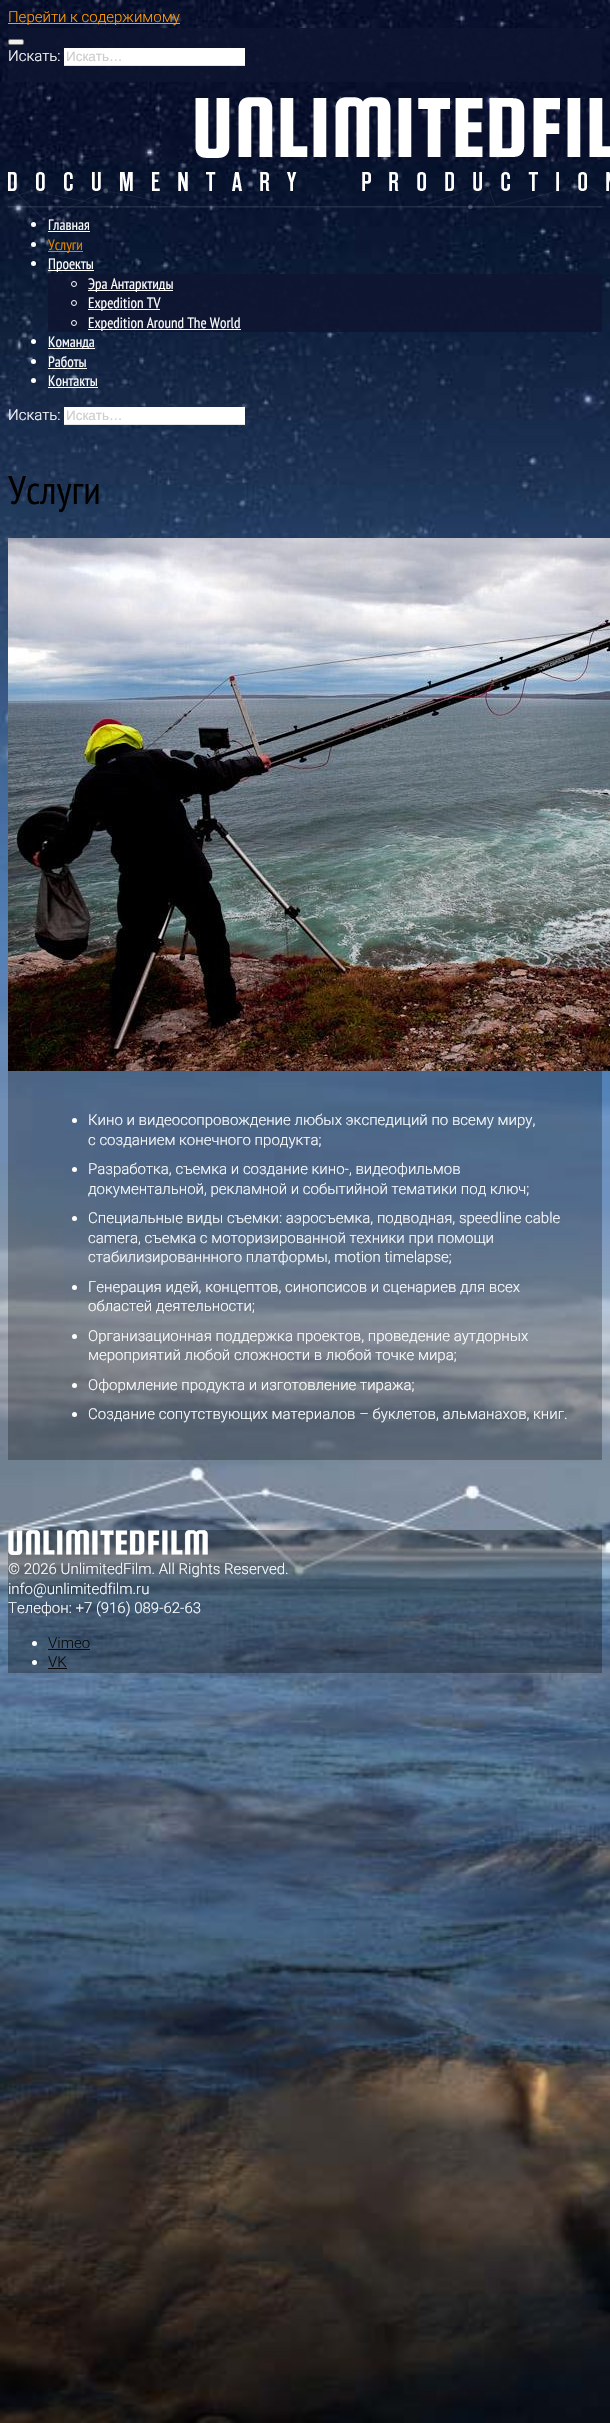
#include "include/core/SkBlurTypes.h"
#include "include/core/SkCanvas.h"
#include "include/core/SkData.h"
#include "include/core/SkFont.h"
#include "include/core/SkFontMgr.h"
#include "include/core/SkImage.h"
#include "include/core/SkMaskFilter.h"
#include "include/core/SkPaint.h"
#include "include/core/SkPathBuilder.h"
#include "include/core/SkTextBlob.h"
#include "include/effects/SkDashPathEffect.h"
#include "include/effects/SkGradientShader.h"
#include "include/utils/SkParsePath.h"

extern sk_sp<SkFontMgr> fontMgr;

void draw(SkCanvas* canvas) {
    SkPaint p;
    p.setAntiAlias(true);
    auto font = [&](const char* family, int weight, float size, bool italic = false) {
        SkFontStyle style(weight, SkFontStyle::kNormal_Width,
            italic ? SkFontStyle::kItalic_Slant : SkFontStyle::kUpright_Slant);
        SkFont result(fontMgr->matchFamilyStyle(family, style), size);
        result.setSubpixel(true);
        return result;
    };
    auto drawPhoto = [&](const char* path, float l, float t, float r, float b) {
        auto image = SkImages::DeferredFromEncodedData(SkData::MakeFromFileName(path));
        canvas->drawImageRect(image, SkRect::MakeLTRB(l, t, r, b), SkSamplingOptions());
    };
    canvas->clear(0xFFFFFFFF);
    drawPhoto("media/1.png", 0, 0, 610, 2423);
    p.setColor(0xFFFF9B00);
    canvas->drawRect(SkRect::MakeLTRB(8, 23, 180, 24), p);
    auto font1 = font("Roboto", 300, 15);
    canvas->drawString("Перейти к содержимому", 8, 22, font1, p);
    p.setColor(0xDB0D1430);
    canvas->drawRect(SkRect::MakeLTRB(8, 28, 602, 82), p);
    p.setColor(0xFFEFEFEF);
    canvas->drawRoundRect(SkRect::MakeLTRB(8.5f, 39.5f, 23.5f, 44.5f), 1.5f, 1.5f, p);
    p.setStyle(SkPaint::kStroke_Style);
    p.setStrokeWidth(1);
    p.setColor(0xFF767676);
    canvas->drawRoundRect(SkRect::MakeLTRB(8.5f, 39.5f, 23.5f, 44.5f), 1.5f, 1.5f, p);
    p.setStyle(SkPaint::kFill_Style);
    p.setColor(0xFFFFFFFF);
    canvas->drawString("Искать:", 8, 61, font1, p);
    canvas->drawRect(SkRect::MakeLTRB(64, 48, 245, 65), p);
    p.setColor(0xFFE5E5E5);
    canvas->drawRect(SkRect::MakeLTRB(64, 65, 245, 66), p);
    auto font2 = font("Liberation Sans", 400, 13.5f);
    p.setColor(0xFFCDCDCD);
    canvas->drawString("Искать…", 66, 61, font2, p);
    drawPhoto("media/2.png", 8, 182, 602, 221);
    drawPhoto("media/3.png", 8, 97, 610, 191);
    p.setColor(0xFFFFFFFF);
    canvas->drawCircle(33.5f, 224.5f, 2.5f, p);
    auto font3 = font("PT Sans Narrow", 400, 15);
    canvas->drawString("Главная", 48, 230, font3, p);
    canvas->drawRect(SkRect::MakeLTRB(48, 231, 90, 232), p);
    canvas->drawCircle(33.5f, 244.5f, 2.5f, p);
    p.setColor(0xFFDD8500);
    canvas->drawRect(SkRect::MakeLTRB(48, 251, 83, 252), p);
    canvas->drawString("Услуги", 48, 250, font3, p);
    p.setColor(0xFFFFFFFF);
    canvas->drawCircle(33.5f, 263.5f, 2.5f, p);
    canvas->drawRect(SkRect::MakeLTRB(48, 270, 94, 271), p);
    canvas->drawString("Проекты", 48, 269, font3, p);
    p.setColor(0xE60D1430);
    canvas->drawRect(SkRect::MakeLTRB(48, 274, 602, 332), p);
    p.setStyle(SkPaint::kStroke_Style);
    p.setColor(0xFFFFFFFF);
    canvas->drawCircle(74, 284, 2.5f, p);
    p.setStyle(SkPaint::kFill_Style);
    canvas->drawRect(SkRect::MakeLTRB(88, 290, 173, 291), p);
    canvas->drawString("Эра Антарктиды", 88, 289, font3, p);
    p.setStyle(SkPaint::kStroke_Style);
    canvas->drawCircle(74, 303, 2.5f, p);
    p.setStyle(SkPaint::kFill_Style);
    canvas->drawRect(SkRect::MakeLTRB(88, 309, 160, 310), p);
    canvas->drawString("Expedition TV", 88, 308, font3, p);
    p.setStyle(SkPaint::kStroke_Style);
    canvas->drawCircle(74, 323, 2.5f, p);
    p.setStyle(SkPaint::kFill_Style);
    canvas->drawRect(SkRect::MakeLTRB(88, 329, 241, 330), p);
    canvas->drawString("Expedition Around The World", 88, 328, font3, p);
    canvas->drawCircle(33.5f, 341.5f, 2.5f, p);
    canvas->drawRect(SkRect::MakeLTRB(48, 348, 95, 349), p);
    canvas->drawString("Команда", 48, 347, font3, p);
    canvas->drawCircle(33.5f, 361.5f, 2.5f, p);
    canvas->drawString("Работы", 48, 367, font3, p);
    canvas->drawRect(SkRect::MakeLTRB(48, 368, 87, 369), p);
    canvas->drawCircle(33.5f, 380.5f, 2.5f, p);
    canvas->drawString("Контакты", 48, 386, font3, p);
    canvas->drawRect(SkRect::MakeLTRB(48, 387, 98, 388), p);
    canvas->drawString("Искать:", 8, 420, font1, p);
    canvas->drawRect(SkRect::MakeLTRB(64, 407, 245, 424), p);
    p.setColor(0xFFE5E5E5);
    canvas->drawRect(SkRect::MakeLTRB(64, 424, 245, 425), p);
    p.setColor(0xFFCDCDCD);
    canvas->drawString("Искать…", 66, 420, font2, p);
    auto font4 = font("PT Sans Narrow", 400, 40);
    p.setColor(0xFF000000);
    canvas->drawString("Услуги", 8, 504, font4, p);
    p.setColor(0x42000000);
    canvas->drawRect(SkRect::MakeLTRB(8, 1071, 602, 1076), p);
    drawPhoto("media/4.png", 8, 538, 610, 1071);
    canvas->drawRect(SkRect::MakeLTRB(8, 1076, 602, 1460), p);
    p.setColor(0xFFFFFFFF);
    canvas->drawCircle(74.5f, 1120.5f, 2.5f, p);
    canvas->drawString("Кино и видеосопровождение любых экспедиций по всему миру,", 88, 1125, font1, p);
    canvas->drawString("с созданием конечного продукта;", 88, 1145, font1, p);
    canvas->drawCircle(74.5f, 1169.5f, 2.5f, p);
    canvas->drawString("Разработка, съемка и создание кино-, видеофильмов", 88, 1174, font1, p);
    canvas->drawString("документальной, рекламной и событийной тематики под ключ;", 88, 1194, font1, p);
    canvas->drawCircle(74.5f, 1218.5f, 2.5f, p);
    {
        const struct { const char* s; float x, y; } items[] = {
            {"Специальные виды съемки: аэросъемка, подводная, speedline cable", 88, 1223},
            {"camera, съемка с моторизированной техники при помощи", 88, 1243},
            {"стабилизированнного платформы, motion timelapse;", 88, 1262},
        };
        for (auto [s, x, y] : items) {
            canvas->drawString(s, x, y, font1, p);
        }
    }
    canvas->drawCircle(74.5f, 1287.5f, 2.5f, p);
    canvas->drawString("Генерация идей, концептов, синопсисов и сценариев для всех", 88, 1292, font1, p);
    canvas->drawString("областей деятельности;", 88, 1311, font1, p);
    canvas->drawCircle(74.5f, 1336.5f, 2.5f, p);
    canvas->drawString("Организационная поддержка проектов, проведение аутдорных", 88, 1341, font1, p);
    canvas->drawString("мероприятий любой сложности в любой точке мира;", 88, 1360, font1, p);
    canvas->drawCircle(74.5f, 1385.5f, 2.5f, p);
    canvas->drawString("Оформление продукта и изготовление тиража;", 88, 1390, font1, p);
    canvas->drawCircle(74.5f, 1414.5f, 2.5f, p);
    canvas->drawString("Создание сопутствующих материалов – буклетов, альманахов, книг.", 88, 1419, font1, p);
    p.setColor(0x4F000000);
    canvas->drawRect(SkRect::MakeLTRB(8, 1530, 602, 1673), p);
    drawPhoto("media/5.png", 8, 1530, 208, 1555);
    p.setColor(0xFFFFFFFF);
    {
        const struct { const char* s; float x, y; } items[] = {
            {"© 2026 UnlimitedFilm. All Rights Reserved.", 8, 1574},
            {"info@unlimitedfilm.ru", 8, 1594},
            {"Телефон: +7 (916) 089-62-63", 8, 1613},
        };
        for (auto [s, x, y] : items) {
            canvas->drawString(s, x, y, font1, p);
        }
    }
    canvas->drawCircle(34.5f, 1643.5f, 2.5f, p);
    p.setColor(0xFF0A0A0A);
    canvas->drawString("Vimeo", 48, 1648, font1, p);
    canvas->drawRect(SkRect::MakeLTRB(48, 1649, 90, 1650), p);
    p.setColor(0xFFFFFFFF);
    canvas->drawCircle(34.5f, 1662.5f, 2.5f, p);
    p.setColor(0xFF0A0A0A);
    canvas->drawString("VK", 48, 1667, font1, p);
    canvas->drawRect(SkRect::MakeLTRB(48, 1668, 67, 1669), p);
}
